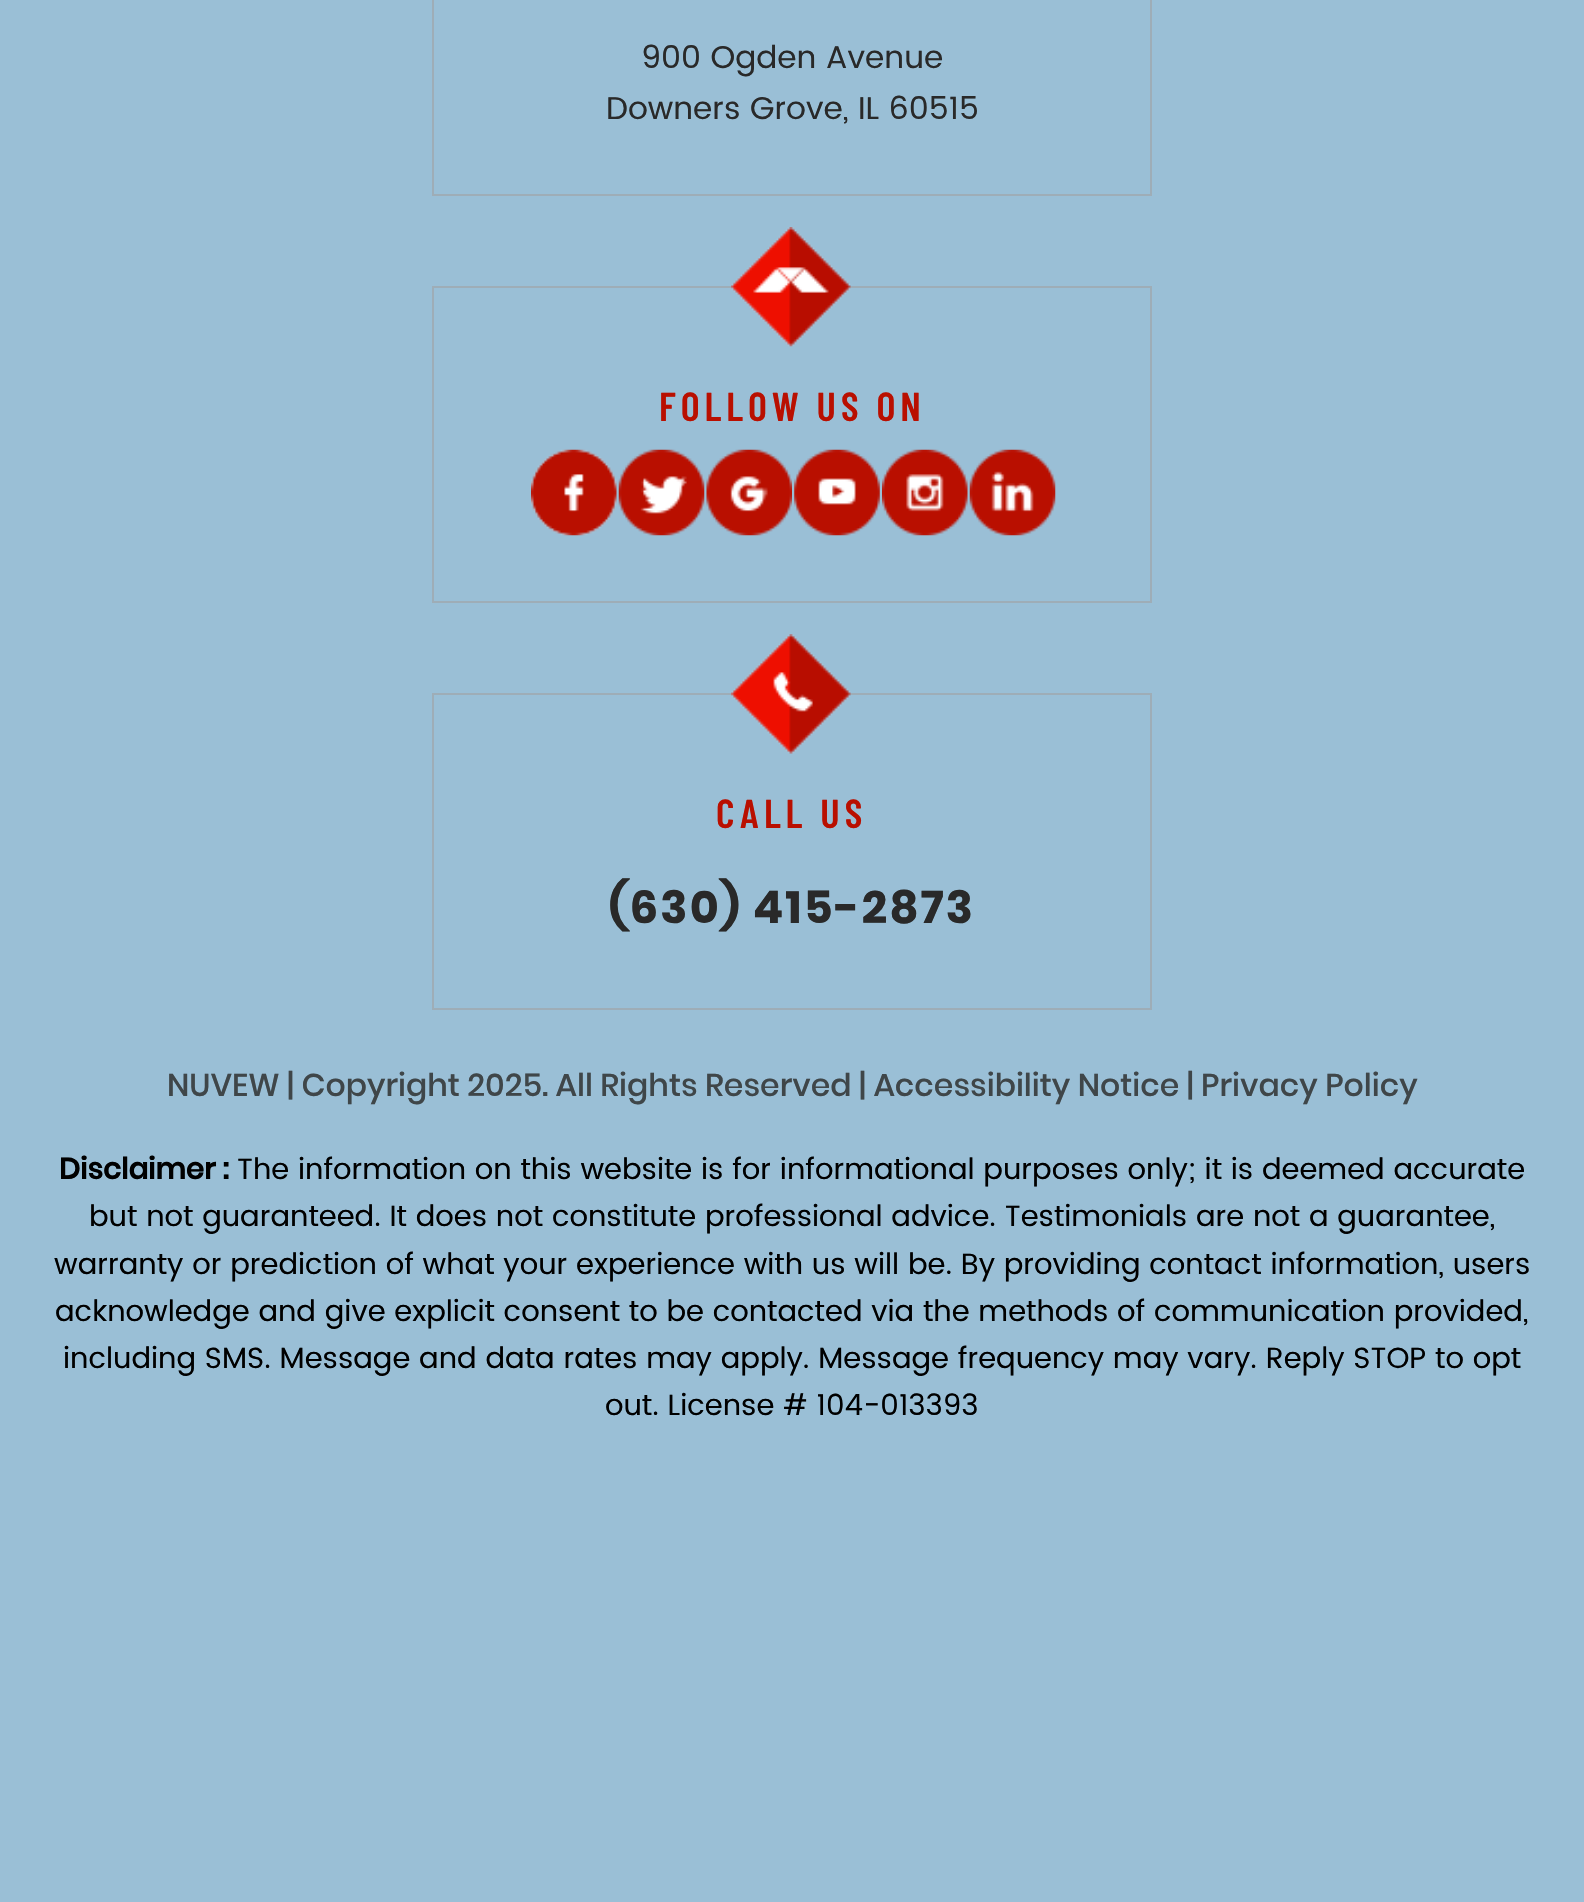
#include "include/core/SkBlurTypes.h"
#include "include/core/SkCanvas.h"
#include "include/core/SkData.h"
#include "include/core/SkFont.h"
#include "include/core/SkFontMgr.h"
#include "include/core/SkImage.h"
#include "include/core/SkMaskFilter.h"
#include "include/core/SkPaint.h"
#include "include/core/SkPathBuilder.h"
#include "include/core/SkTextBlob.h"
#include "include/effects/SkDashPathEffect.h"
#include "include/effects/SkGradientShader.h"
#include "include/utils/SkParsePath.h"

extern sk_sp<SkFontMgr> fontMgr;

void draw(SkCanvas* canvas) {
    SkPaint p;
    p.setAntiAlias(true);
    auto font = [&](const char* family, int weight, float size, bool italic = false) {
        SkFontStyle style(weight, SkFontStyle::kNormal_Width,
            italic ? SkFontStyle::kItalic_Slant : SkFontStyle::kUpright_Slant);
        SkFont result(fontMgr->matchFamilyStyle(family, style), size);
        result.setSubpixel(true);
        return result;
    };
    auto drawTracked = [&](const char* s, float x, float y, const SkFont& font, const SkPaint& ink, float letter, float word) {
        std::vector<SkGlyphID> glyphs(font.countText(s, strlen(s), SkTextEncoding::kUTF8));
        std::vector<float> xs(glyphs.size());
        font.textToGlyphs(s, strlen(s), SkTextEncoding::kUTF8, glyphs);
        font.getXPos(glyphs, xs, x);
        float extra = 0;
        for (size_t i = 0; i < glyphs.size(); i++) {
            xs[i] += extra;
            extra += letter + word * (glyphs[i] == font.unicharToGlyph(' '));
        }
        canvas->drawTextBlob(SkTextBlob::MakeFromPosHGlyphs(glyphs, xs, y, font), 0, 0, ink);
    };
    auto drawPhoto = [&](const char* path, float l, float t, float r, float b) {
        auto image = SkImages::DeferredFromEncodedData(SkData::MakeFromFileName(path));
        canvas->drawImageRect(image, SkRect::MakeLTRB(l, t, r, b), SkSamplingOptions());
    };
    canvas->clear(0xFF9ABFD6);
    p.setStyle(SkPaint::kStroke_Style);
    p.setStrokeWidth(2);
    p.setColor(0xFF9EADB7);
    canvas->drawRect(SkRect::MakeLTRB(433, -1, 1151, 195), p);
    auto font1 = font("Poppins", 400, 31.5f);
    p.setStyle(SkPaint::kFill_Style);
    p.setColor(0xFF292929);
    canvas->drawString("900 Ogden Avenue", 641, 68, font1, p);
    canvas->drawString("Downers Grove, IL 60515", 606, 119, font1, p);
    p.setStyle(SkPaint::kStroke_Style);
    p.setColor(0xFF9EADB7);
    canvas->drawRect(SkRect::MakeLTRB(433, 287, 1151, 602), p);
    drawPhoto("media/1.png", 731, 227, 851, 347);
    auto font2 = font("Barlow Condensed", 600, 40.5f);
    p.setStyle(SkPaint::kFill_Style);
    p.setColor(0xFFB90F00);
    drawTracked("FOLLOW US ON", 659, 421, font2, p, 4.9f, 0);
    drawPhoto("media/2.png", 531, 449, 617, 536);
    drawPhoto("media/3.png", 618, 449, 705, 536);
    drawPhoto("media/4.png", 706, 449, 792, 536);
    drawPhoto("media/5.png", 794, 449, 880, 536);
    drawPhoto("media/6.png", 882, 449, 968, 536);
    drawPhoto("media/7.png", 969, 449, 1056, 536);
    p.setStyle(SkPaint::kStroke_Style);
    p.setColor(0xFF9EADB7);
    canvas->drawRect(SkRect::MakeLTRB(433, 694, 1151, 1009), p);
    drawPhoto("media/8.png", 731, 634, 851, 754);
    p.setStyle(SkPaint::kFill_Style);
    p.setColor(0xFFB90F00);
    drawTracked("CALL US", 716, 828, font2, p, 4.9f, 0);
    auto font3 = font("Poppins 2", 700, 45);
    p.setColor(0xFF292929);
    drawTracked("(630) 415-2873", 609, 923, font3, p, 2.25f, 0);
    auto font4 = font("Poppins", 500, 31.5f);
    p.setColor(0xFF3F4649);
    canvas->drawString("NUVEW | Copyright 2025. All Rights Reserved | Accessibility Notice | Privacy Policy", 167, 1096, font4, p);
    auto font5 = font("Poppins", 700, 29.25f);
    p.setColor(0xFF000000);
    canvas->drawString("Disclaimer :", 59, 1179, font5, p);
    auto font6 = font("Poppins", 400, 29.25f);
    {
        const struct { const char* s; float x, y; } items[] = {
            {"The information on this website is for informational purposes only; it is deemed accurate", 237, 1179},
            {"but not guaranteed. It does not constitute professional advice. Testimonials are not a guarantee,", 89, 1226},
            {"warranty or prediction of what your experience with us will be. By providing contact information, users", 54, 1274},
            {"acknowledge and give explicit consent to be contacted via the methods of communication provided,", 55, 1321},
            {"including SMS. Message and data rates may apply. Message frequency may vary. Reply STOP to opt", 63, 1368},
            {"out. License # 104-013393", 605, 1415},
        };
        for (auto [s, x, y] : items) {
            canvas->drawString(s, x, y, font6, p);
        }
    }
}
